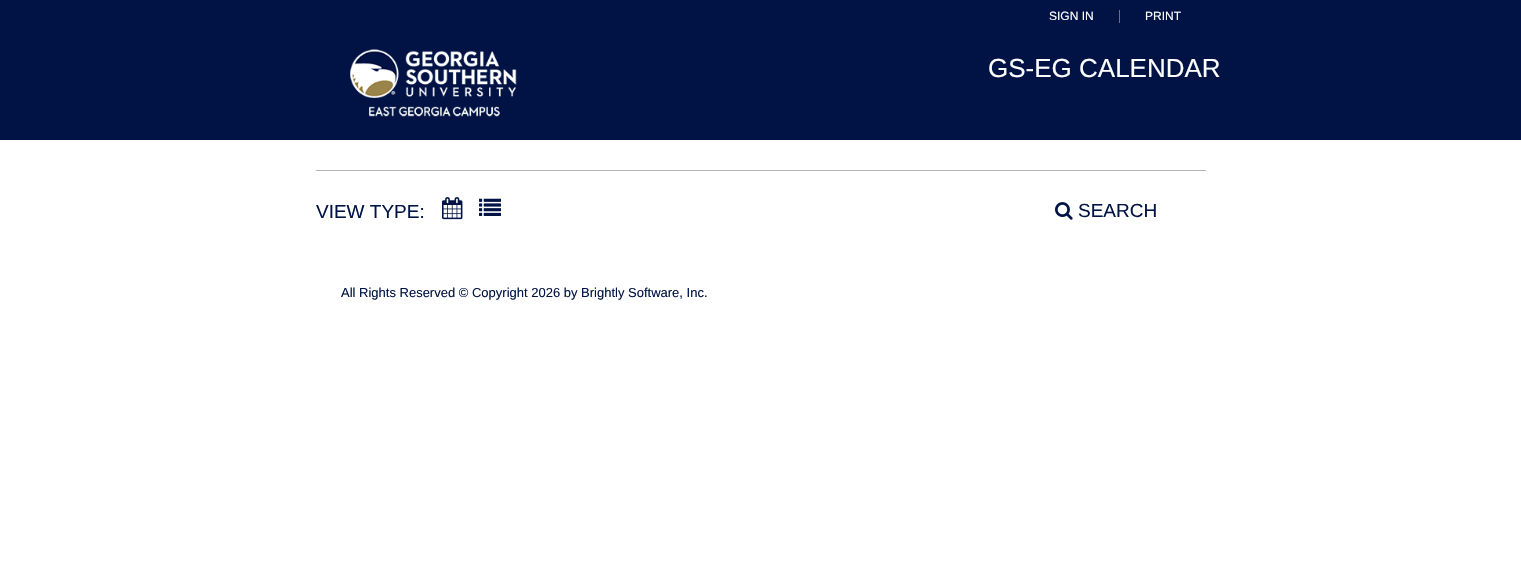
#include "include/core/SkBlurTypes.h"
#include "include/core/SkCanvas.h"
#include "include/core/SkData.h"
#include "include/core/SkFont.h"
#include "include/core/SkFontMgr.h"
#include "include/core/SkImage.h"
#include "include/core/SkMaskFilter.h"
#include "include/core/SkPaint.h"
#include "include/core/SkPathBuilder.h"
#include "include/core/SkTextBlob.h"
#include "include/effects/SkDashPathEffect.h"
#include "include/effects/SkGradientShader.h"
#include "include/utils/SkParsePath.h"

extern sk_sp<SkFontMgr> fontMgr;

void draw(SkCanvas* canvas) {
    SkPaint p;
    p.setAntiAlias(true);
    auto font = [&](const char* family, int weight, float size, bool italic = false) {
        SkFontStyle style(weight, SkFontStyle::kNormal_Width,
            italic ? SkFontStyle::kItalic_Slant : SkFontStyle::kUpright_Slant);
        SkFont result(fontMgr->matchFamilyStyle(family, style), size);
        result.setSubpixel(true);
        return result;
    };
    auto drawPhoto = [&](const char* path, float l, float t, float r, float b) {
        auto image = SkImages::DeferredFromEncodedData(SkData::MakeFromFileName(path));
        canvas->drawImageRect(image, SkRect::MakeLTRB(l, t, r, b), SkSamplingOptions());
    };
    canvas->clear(0xFFFFFFFF);
    p.setColor(0xFF001344);
    canvas->drawRect(SkRect::MakeLTRB(0, 0, 1521, 140), p);
    p.setColor(0xFF707070);
    canvas->drawRect(SkRect::MakeLTRB(1119, 10, 1120, 23), p);
    auto font1 = font("Liberation Sans", 400, 12);
    p.setColor(0xFFFFFFFF);
    canvas->drawString("SIGN IN", 1049, 20, font1, p);
    canvas->drawString("PRINT", 1145, 20, font1, p);
    drawPhoto("media/1.png", 350, 49, 517, 117);
    auto font2 = font("Liberation Sans", 400, 26);
    canvas->drawString("GS-EG CALENDAR", 988, 77, font2, p);
    p.setColor(0xFFB5B5B5);
    canvas->drawRect(SkRect::MakeLTRB(316, 170, 1206, 171), p);
    auto font3 = font("Liberation Sans", 400, 19);
    p.setColor(0xFF001344);
    canvas->drawString("VIEW TYPE:", 316, 218, font3, p);
    drawPhoto("media/2.png", 442, 197, 463, 220);
    drawPhoto("media/3.png", 479, 198, 501, 216);
    drawPhoto("media/4.png", 1055, 202, 1073, 220);
    canvas->drawString("SEARCH", 1078, 217, font3, p);
    auto font4 = font("Liberation Sans", 400, 13);
    canvas->drawString("All Rights Reserved © Copyright 2026 by Brightly Software, Inc.", 341, 297, font4, p);
}
